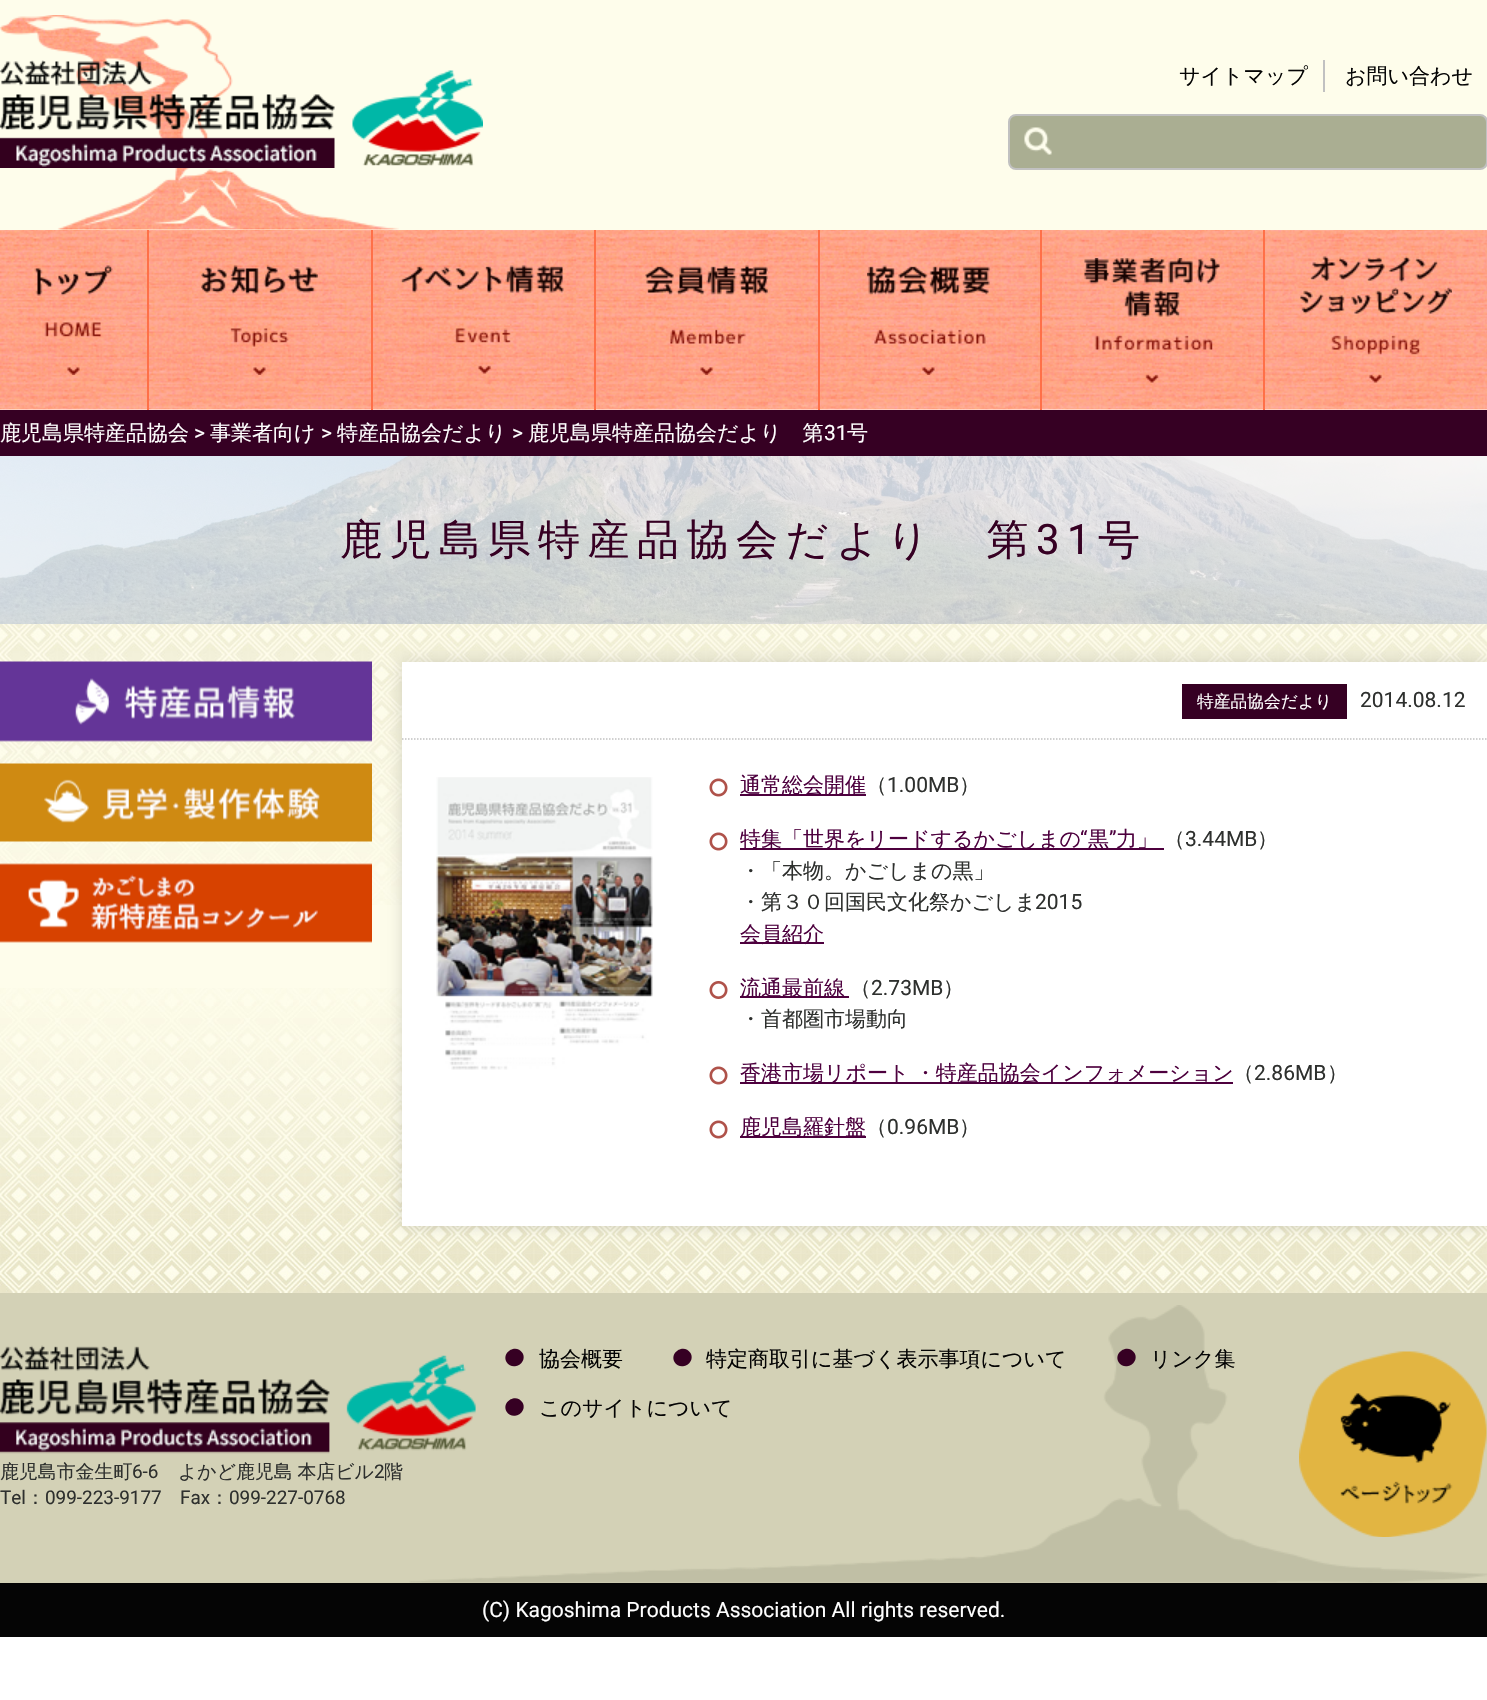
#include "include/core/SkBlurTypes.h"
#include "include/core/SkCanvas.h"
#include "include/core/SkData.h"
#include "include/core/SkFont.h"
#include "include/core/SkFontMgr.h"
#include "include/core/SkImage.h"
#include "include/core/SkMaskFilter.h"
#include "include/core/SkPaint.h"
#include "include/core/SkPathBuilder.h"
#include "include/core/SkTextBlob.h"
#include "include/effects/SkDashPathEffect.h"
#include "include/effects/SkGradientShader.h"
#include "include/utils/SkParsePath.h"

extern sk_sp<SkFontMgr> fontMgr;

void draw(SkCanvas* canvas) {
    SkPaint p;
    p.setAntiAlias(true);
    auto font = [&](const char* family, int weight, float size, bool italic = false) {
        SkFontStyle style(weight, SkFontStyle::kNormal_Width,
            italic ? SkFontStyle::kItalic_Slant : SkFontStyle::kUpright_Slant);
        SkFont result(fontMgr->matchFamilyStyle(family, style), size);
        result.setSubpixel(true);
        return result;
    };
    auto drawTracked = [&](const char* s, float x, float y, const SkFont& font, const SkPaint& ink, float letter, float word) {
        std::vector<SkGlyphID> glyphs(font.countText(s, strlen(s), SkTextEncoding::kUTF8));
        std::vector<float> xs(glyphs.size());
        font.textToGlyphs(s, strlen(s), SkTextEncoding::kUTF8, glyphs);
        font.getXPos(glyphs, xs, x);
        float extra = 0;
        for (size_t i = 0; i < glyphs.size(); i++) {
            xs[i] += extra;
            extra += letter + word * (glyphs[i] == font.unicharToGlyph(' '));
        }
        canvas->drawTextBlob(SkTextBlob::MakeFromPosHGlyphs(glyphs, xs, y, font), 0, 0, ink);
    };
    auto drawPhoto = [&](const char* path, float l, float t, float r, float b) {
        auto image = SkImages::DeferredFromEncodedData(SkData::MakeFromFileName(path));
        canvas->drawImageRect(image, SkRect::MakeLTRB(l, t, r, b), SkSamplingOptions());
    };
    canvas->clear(0xFFFFFFFF);
    p.setColor(0xFFFEFDEB);
    canvas->drawRect(SkRect::MakeLTRB(0, 0, 1487, 230), p);
    drawPhoto("media/1.png", 0, 15, 399, 230);
    drawPhoto("media/2.png", 0, 60, 483, 168);
    p.setColor(0xFFC1C1C1);
    canvas->drawRect(SkRect::MakeLTRB(1323, 60, 1325, 92), p);
    auto font1 = font("WenQuanYi Zen Hei", 500, 21);
    p.setColor(0xFF040404);
    canvas->drawString("サイトマップ", 1179, 83, font1, p);
    canvas->drawString("お問い合わせ", 1345, 83, font1, p);
    p.setColor(0xFFAAAE92);
    canvas->drawRoundRect(SkRect::MakeLTRB(1009, 115, 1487, 169), 7, 7, p);
    p.setStyle(SkPaint::kStroke_Style);
    p.setStrokeWidth(2);
    p.setColor(0xFFC1C1C1);
    canvas->drawRoundRect(SkRect::MakeLTRB(1009, 115, 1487, 169), 7, 7, p);
    drawPhoto("media/3.png", 1024, 127, 1052, 155);
    drawPhoto("media/4.png", 0, 230, 1487, 410);
    p.setStyle(SkPaint::kFill_Style);
    p.setColor(0xFFFF7048);
    canvas->drawRect(SkRect::MakeLTRB(147, 230, 149, 410), p);
    drawPhoto("media/5.png", 34, 265, 113, 375);
    canvas->drawRect(SkRect::MakeLTRB(371, 230, 373, 410), p);
    drawPhoto("media/6.png", 201, 265, 318, 375);
    canvas->drawRect(SkRect::MakeLTRB(594, 230, 596, 410), p);
    drawPhoto("media/7.png", 400, 265, 564, 374);
    canvas->drawRect(SkRect::MakeLTRB(818, 230, 820, 410), p);
    drawPhoto("media/8.png", 645, 265, 768, 375);
    canvas->drawRect(SkRect::MakeLTRB(1040, 230, 1042, 410), p);
    drawPhoto("media/9.png", 867, 265, 990, 375);
    canvas->drawRect(SkRect::MakeLTRB(1263, 230, 1265, 410), p);
    drawPhoto("media/10.png", 1084, 258, 1220, 383);
    drawPhoto("media/11.png", 1300, 256, 1452, 383);
    p.setColor(0xFF360023);
    canvas->drawRect(SkRect::MakeLTRB(0, 410, 1487, 456), p);
    p.setColor(0xFFFFFFFF);
    canvas->drawString("鹿児島県特産品協会", 0, 440, font1, p);
    auto font2 = font("Roboto", 400, 21);
    canvas->drawString(">", 194, 440, font2, p);
    canvas->drawString("事業者向け", 210, 440, font1, p);
    canvas->drawString(">", 321, 440, font2, p);
    canvas->drawString("特産品協会だより", 337, 440, font1, p);
    canvas->drawString(">", 512, 440, font2, p);
    canvas->drawString("鹿児島県特産品協会だより　第", 528, 440, font1, p);
    canvas->drawString("31", 824, 440, font2, p);
    canvas->drawString("号", 847, 440, font1, p);
    drawPhoto("media/12.png", 0, 456, 1487, 624);
    auto font3 = font("WenQuanYi Zen Hei", 500, 42);
    p.setColor(0xFF360023);
    drawTracked("鹿児島県特産品協会だより　第", 340, 554, font3, p, 7.5f, 0);
    auto font4 = font("Roboto", 400, 42);
    drawTracked("31", 1036, 554, font4, p, 7.5f, 0);
    drawTracked("号", 1098, 554, font3, p, 7.5f, 0);
    p.setColor(0xFFFEFDEB);
    canvas->drawRect(SkRect::MakeLTRB(0, 905, 402, 988), p);
    drawPhoto("media/13.png", 0, 988, 1487, 1293);
    drawPhoto("media/14.png", 0, 624, 1487, 905);
    drawPhoto("media/15.png", 0, 661, 372, 742);
    drawPhoto("media/16.png", 0, 763, 372, 842);
    drawPhoto("media/17.png", 0, 863, 372, 943);
    p.setColor(0x26000000);
    p.setMaskFilter(SkMaskFilter::MakeBlur(kNormal_SkBlurStyle, 7.5f));
    canvas->drawRect(SkRect::MakeLTRB(402, 662, 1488, 1226), p);
    p.setMaskFilter(nullptr);
    p.setColor(0xFFFFFFFF);
    canvas->drawRect(SkRect::MakeLTRB(402, 662, 1487, 1226), p);
    p.setStyle(SkPaint::kStroke_Style);
    p.setStrokeWidth(1.5f);
    p.setColor(0xFFC1C1C1);
    p.setPathEffect(SkDashPathEffect::Make({{1.5f, 1.5f}}, 0));
    canvas->drawPath(SkPathBuilder().moveTo(402, 739).lineTo(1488, 739).detach(), p);
    p.setPathEffect(nullptr);
    p.setStyle(SkPaint::kFill_Style);
    p.setColor(0xFF360023);
    canvas->drawRect(SkRect::MakeLTRB(1182, 684, 1347, 719), p);
    auto font5 = font("WenQuanYi Zen Hei", 500, 16.75f);
    p.setColor(0xFFFFFFFF);
    canvas->drawString("特産品協会だより", 1197, 707, font5, p);
    p.setColor(0xFF2E302E);
    canvas->drawString("2014.08.12", 1360, 707, font2, p);
    drawPhoto("media/18.png", 436, 777, 653, 1070);
    drawPhoto("media/19.png", 709, 778, 728, 797);
    p.setColor(0xFF4D003E);
    canvas->drawRect(SkRect::MakeLTRB(740, 794, 866, 796), p);
    canvas->drawString("通常総会開催", 740, 792, font1, p);
    p.setColor(0xFF2E302E);
    canvas->drawString("（", 866, 792, font1, p);
    canvas->drawString("1.00MB", 887, 792, font2, p);
    canvas->drawString("）", 959, 792, font1, p);
    drawPhoto("media/19.png", 709, 832, 728, 851);
    p.setColor(0xFF4D003E);
    canvas->drawRect(SkRect::MakeLTRB(740, 848, 1164, 850), p);
    canvas->drawString("特集「世界をリードするかごしまの", 740, 846, font1, p);
    canvas->drawString("“", 1080, 846, font2, p);
    canvas->drawString("黒", 1088, 846, font1, p);
    canvas->drawString("”", 1109, 846, font2, p);
    canvas->drawString("力」", 1116, 846, font1, p);
    p.setColor(0xFF2E302E);
    canvas->drawString("（", 1164, 846, font1, p);
    canvas->drawString("3.44MB", 1185, 846, font2, p);
    {
        const struct { const char* s; float x, y; } items[] = {
            {"）", 1257, 846},
            {"・「本物。かごしまの黒」", 740, 878},
            {"・第３０回国民文化祭かごしま", 740, 909},
        };
        for (auto [s, x, y] : items) {
            canvas->drawString(s, x, y, font1, p);
        }
    }
    canvas->drawString("2015", 1035, 909, font2, p);
    p.setColor(0xFF4D003E);
    canvas->drawRect(SkRect::MakeLTRB(740, 942, 824, 944), p);
    canvas->drawString("会員紹介", 740, 941, font1, p);
    drawPhoto("media/20.png", 709, 981, 728, 999);
    canvas->drawRect(SkRect::MakeLTRB(740, 996, 849, 998), p);
    canvas->drawString("流通最前線", 740, 995, font1, p);
    p.setColor(0xFF2E302E);
    canvas->drawString("（", 850, 995, font1, p);
    canvas->drawString("2.73MB", 871, 995, font2, p);
    canvas->drawString("）", 943, 995, font1, p);
    canvas->drawString("・首都圏市場動向", 740, 1026, font1, p);
    drawPhoto("media/19.png", 709, 1066, 728, 1085);
    p.setColor(0xFF4D003E);
    canvas->drawRect(SkRect::MakeLTRB(740, 1082, 1233, 1084), p);
    drawTracked("香港市場リポート ・特産品協会インフォメーション", 740, 1080, font1, p, 0, -1);
    p.setColor(0xFF2E302E);
    canvas->drawString("（", 1233, 1080, font1, p);
    canvas->drawString("2.86MB", 1254, 1080, font2, p);
    canvas->drawString("）", 1327, 1080, font1, p);
    drawPhoto("media/19.png", 709, 1120, 728, 1139);
    p.setColor(0xFF4D003E);
    canvas->drawRect(SkRect::MakeLTRB(740, 1136, 866, 1138), p);
    canvas->drawString("鹿児島羅針盤", 740, 1134, font1, p);
    p.setColor(0xFF2E302E);
    canvas->drawString("（", 866, 1134, font1, p);
    canvas->drawString("0.96MB", 887, 1134, font2, p);
    canvas->drawString("）", 959, 1134, font1, p);
    p.setColor(0xFFD3D1B6);
    canvas->drawRect(SkRect::MakeLTRB(0, 1293, 1487, 1583), p);
    drawPhoto("media/21.png", 409, 1305, 1487, 1583);
    drawPhoto("media/22.png", 0, 1345, 476, 1454);
    auto font6 = font("WenQuanYi Zen Hei", 500, 18.9f);
    p.setColor(0xFF2E302E);
    canvas->drawString("鹿児島市金生町", 0, 1478, font6, p);
    auto font7 = font("Roboto", 400, 18.9f);
    canvas->drawString("6-6", 132, 1478, font7, p);
    drawTracked("よかど鹿児島 本店ビル", 178, 1478, font6, p, 0, -1);
    canvas->drawString("2", 374, 1478, font7, p);
    canvas->drawString("階", 384, 1478, font6, p);
    canvas->drawString("Tel", 0, 1504, font7, p);
    canvas->drawString("：", 26, 1504, font6, p);
    canvas->drawString("099-223-9177", 45, 1504, font7, p);
    canvas->drawString("Fax", 180, 1504, font7, p);
    canvas->drawString("：", 210, 1504, font6, p);
    canvas->drawString("099-227-0768", 229, 1504, font7, p);
    p.setColor(0xFF360023);
    canvas->drawPath(SkPathBuilder().moveTo(522.5f, 1353).cubicTo(528, 1363, 512.5f, 1372, 506.5f, 1362).cubicTo(501, 1352, 516.5f, 1343, 522.5f, 1353).close().detach(), p);
    p.setColor(0xFF040404);
    canvas->drawString("協会概要", 539, 1366, font1, p);
    p.setColor(0xFF360023);
    canvas->drawPath(SkPathBuilder().moveTo(690.5f, 1353).cubicTo(696, 1363, 680.5f, 1372, 674.5f, 1362).cubicTo(669, 1352, 684.5f, 1343, 690.5f, 1353).close().detach(), p);
    p.setColor(0xFF040404);
    canvas->drawString("特定商取引に基づく表示事項について", 706, 1366, font1, p);
    p.setColor(0xFF360023);
    canvas->drawPath(SkPathBuilder().moveTo(1134.5f, 1353).cubicTo(1140, 1363, 1124.5f, 1372, 1118.5f, 1362).cubicTo(1113, 1352, 1128.5f, 1343, 1134.5f, 1353).close().detach(), p);
    p.setColor(0xFF040404);
    canvas->drawString("リンク集", 1150, 1366, font1, p);
    p.setColor(0xFF360023);
    canvas->drawPath(SkPathBuilder().moveTo(522.5f, 1402.5f).cubicTo(528, 1412.5f, 512.5f, 1421.5f, 506.5f, 1411.5f).cubicTo(501, 1401.5f, 516.5f, 1392.5f, 522.5f, 1402.5f).close().detach(), p);
    p.setColor(0xFF040404);
    canvas->drawString("このサイトについて", 539, 1415, font1, p);
    drawPhoto("media/23.png", 1299, 1351, 1487, 1537);
    p.setColor(0xFF050505);
    canvas->drawRect(SkRect::MakeLTRB(0, 1583, 1487, 1637), p);
    p.setColor(0xFFFFFFFF);
    canvas->drawString("(C) Kagoshima Products Association All rights reserved.", 482, 1617, font2, p);
}
